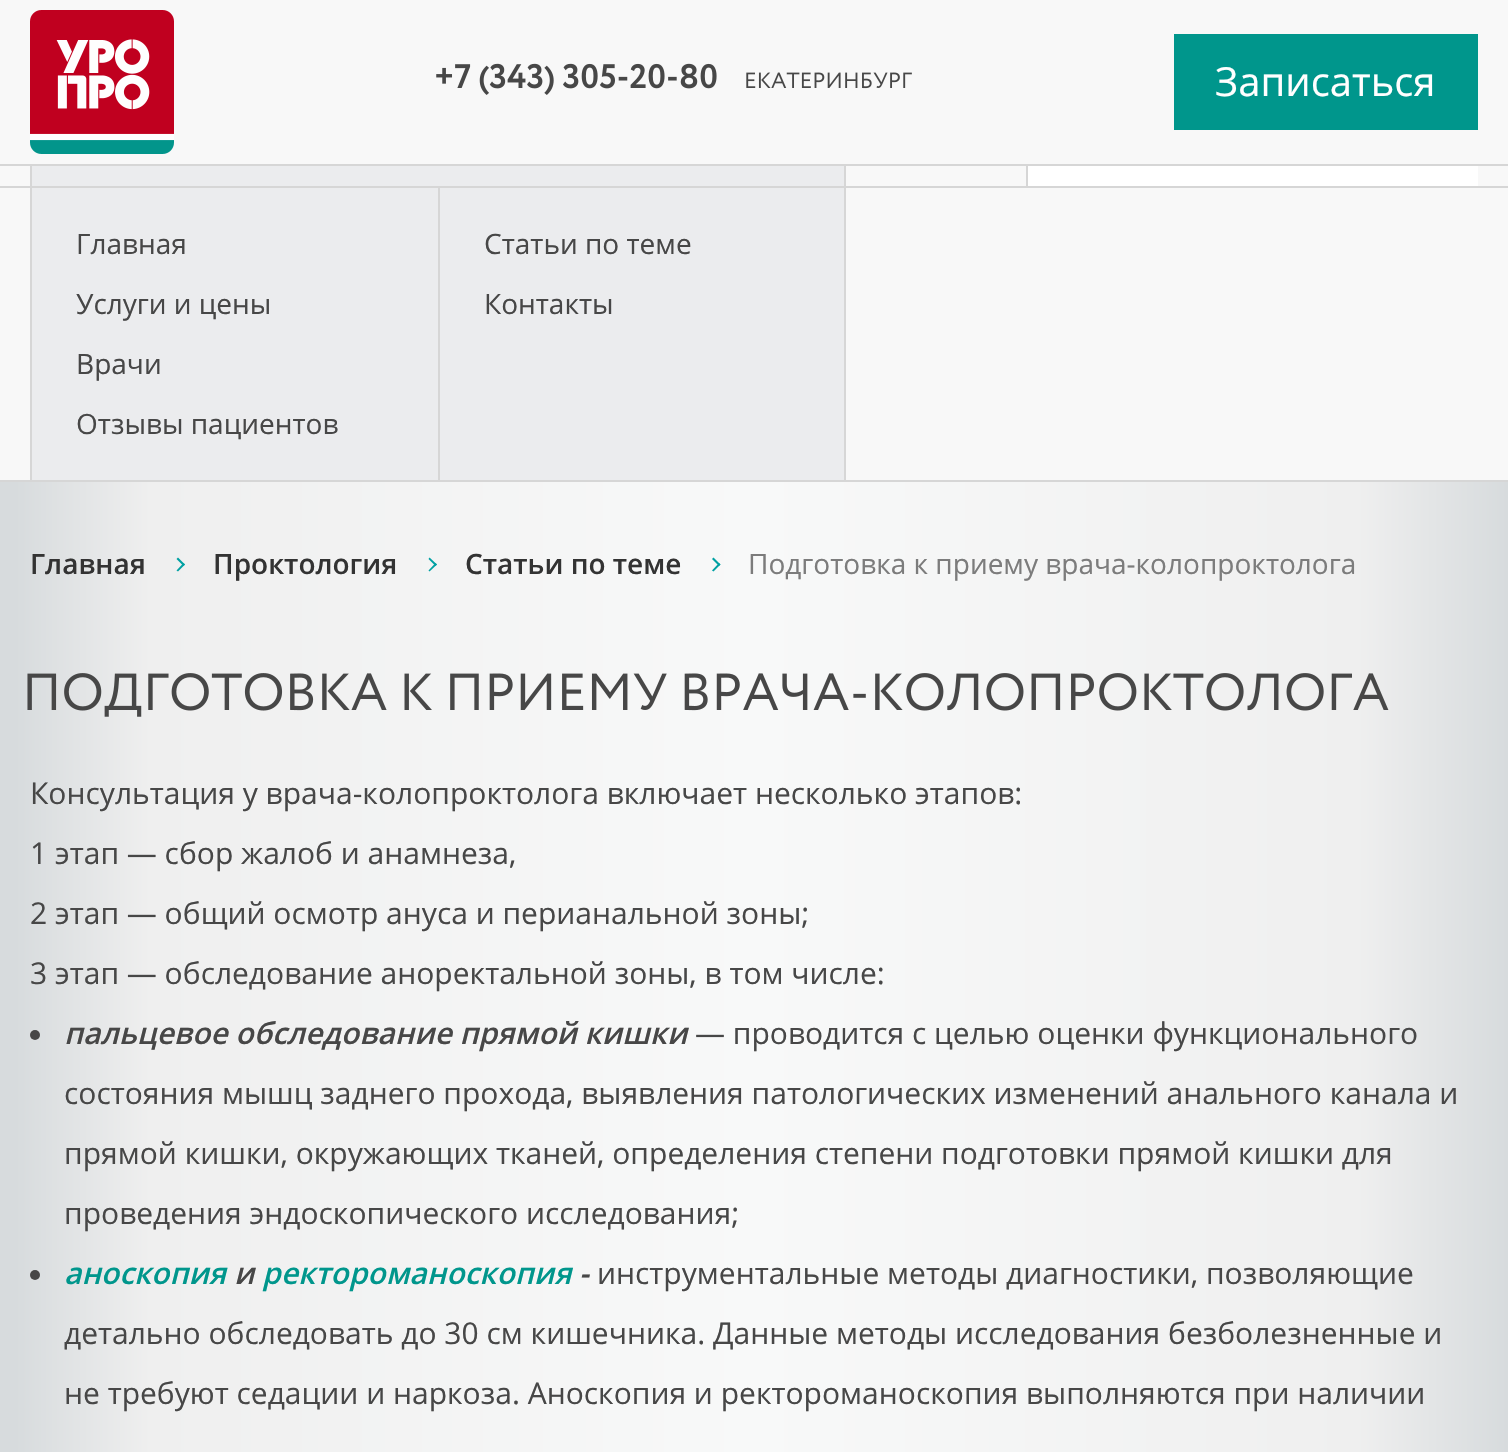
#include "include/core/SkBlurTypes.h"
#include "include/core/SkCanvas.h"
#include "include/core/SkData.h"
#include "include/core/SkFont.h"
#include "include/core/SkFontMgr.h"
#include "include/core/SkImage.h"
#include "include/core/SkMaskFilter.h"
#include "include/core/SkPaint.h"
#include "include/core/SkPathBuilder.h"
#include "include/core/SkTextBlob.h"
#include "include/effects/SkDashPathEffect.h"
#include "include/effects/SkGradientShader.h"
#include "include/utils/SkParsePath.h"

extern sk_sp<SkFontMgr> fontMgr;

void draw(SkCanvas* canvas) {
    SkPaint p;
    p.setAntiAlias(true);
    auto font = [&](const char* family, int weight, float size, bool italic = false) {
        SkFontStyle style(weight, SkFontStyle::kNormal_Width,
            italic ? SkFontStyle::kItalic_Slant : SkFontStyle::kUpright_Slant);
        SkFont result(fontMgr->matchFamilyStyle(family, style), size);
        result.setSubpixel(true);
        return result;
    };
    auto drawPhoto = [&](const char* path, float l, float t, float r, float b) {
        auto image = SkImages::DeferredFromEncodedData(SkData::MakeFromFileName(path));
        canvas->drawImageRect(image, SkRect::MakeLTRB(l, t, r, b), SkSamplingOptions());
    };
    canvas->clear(0xFFF8F8F8);
    p.setColor(0xFFD6D6D6);
    canvas->drawRect(SkRect::MakeLTRB(0, 164, 1508, 166), p);
    drawPhoto("media/1.png", 30, 10, 174, 154);
    drawPhoto("media/2.png", 436, 63, 717, 95);
    drawPhoto("media/3.png", 746, 72, 912, 89);
    p.setColor(0xFF00968C);
    canvas->drawRect(SkRect::MakeLTRB(1174, 34, 1478, 130), p);
    auto font1 = font("Open Sans", 400, 40);
    p.setColor(0xFFFFFFFF);
    canvas->drawString("Записаться", 1215, 96, font1, p);
    {
        const struct { float l, t, r, b; SkColor color; } items[] = {
            {0, 186, 1508, 188, 0xFFD6D6D6},
            {844, 166, 846, 186, 0xFFD6D6D6},
            {30, 166, 32, 186, 0xFFD6D6D6},
            {32, 166, 844, 186, 0xFFEBECEE},
            {1026, 166, 1028, 186, 0xFFD6D6D6},
            {1028, 166, 1478, 186, 0xFFFFFFFF},
            {0, 480, 1508, 482, 0xFFD6D6D6},
            {32, 188, 844, 480, 0xFFEBECEE},
            {844, 188, 846, 480, 0xFFD6D6D6},
            {30, 188, 32, 480, 0xFFD6D6D6},
        };
        for (auto [l, t, r, b, color] : items) {
            p.setColor(color);
            canvas->drawRect(SkRect::MakeLTRB(l, t, r, b), p);
        }
    }
    auto font2 = font("Open Sans", 400, 28);
    p.setColor(0xFF474747);
    {
        const struct { const char* s; float x, y; } items[] = {
            {"Главная", 76, 254},
            {"Услуги и цены", 76, 314},
            {"Врачи", 76, 374},
            {"Отзывы пациентов", 76, 434},
        };
        for (auto [s, x, y] : items) {
            canvas->drawString(s, x, y, font2, p);
        }
    }
    p.setColor(0xFFD6D6D6);
    canvas->drawRect(SkRect::MakeLTRB(438, 188, 440, 480), p);
    p.setColor(0xFF474747);
    canvas->drawString("Статьи по теме", 484, 254, font2, p);
    canvas->drawString("Контакты", 484, 314, font2, p);
    {
        const SkColor colors[] = {0xFFD7DBDD, 0xFFEFEFEF, 0xFFF8F9F9, 0xFFEFEFEF, 0xFFD7DBDD};
        const float stops[] = {0.01f, 0.1f, 0.5f, 0.9f, 1};
        const SkPoint ends[] = {{0, 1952}, {1508, 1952}};
        p.setShader(SkGradientShader::MakeLinear(ends, colors, stops, 5, SkTileMode::kClamp));
        p.setAlpha(255);
    }
    canvas->drawRect(SkRect::MakeLTRB(0, 482, 1508, 1452), p);
    auto font3 = font("Open Sans", 600, 28);
    p.setShader(nullptr);
    p.setColor(0xFF333333);
    canvas->drawString("Главная", 30, 574, font3, p);
    p.setColor(0xFF00A1A3);
    canvas->drawPath(SkPathBuilder().moveTo(178, 557.5f).lineTo(185, 564.5f).lineTo(183.5f, 566).lineTo(176.5f, 559).close().detach(), p);
    canvas->drawPath(SkPathBuilder().moveTo(183.5f, 563).lineTo(185, 564.5f).lineTo(178, 571.5f).lineTo(176.5f, 570.5f).close().detach(), p);
    p.setColor(0xFF333333);
    canvas->drawString("Проктология", 213, 574, font3, p);
    p.setColor(0xFF00A1A3);
    canvas->drawPath(SkPathBuilder().moveTo(429.5f, 557.5f).lineTo(437, 564.5f).lineTo(435.5f, 566).lineTo(428.5f, 559).close().detach(), p);
    canvas->drawPath(SkPathBuilder().moveTo(435.5f, 563).lineTo(437, 564.5f).lineTo(429.5f, 571.5f).lineTo(428.5f, 570.5f).close().detach(), p);
    p.setColor(0xFF333333);
    canvas->drawString("Статьи по теме", 465, 574, font3, p);
    p.setColor(0xFF00A1A3);
    canvas->drawPath(SkPathBuilder().moveTo(713.5f, 557.5f).lineTo(720.5f, 564.5f).lineTo(719, 566).lineTo(712, 559).close().detach(), p);
    canvas->drawPath(SkPathBuilder().moveTo(719, 563).lineTo(720.5f, 564.5f).lineTo(713.5f, 571.5f).lineTo(712, 570.5f).close().detach(), p);
    p.setColor(0xFF7C7C7C);
    canvas->drawString("Подготовка к приему врача-колопроктолога", 748, 574, font2, p);
    drawPhoto("media/4.png", 27, 673, 1389, 717);
    auto font4 = font("Open Sans", 400, 30);
    p.setColor(0xFF474747);
    {
        const struct { const char* s; float x, y; } items[] = {
            {"Консультация у врача-колопроктолога включает несколько этапов:", 30, 804},
            {"1 этап — сбор жалоб и анамнеза,", 30, 864},
            {"2 этап — общий осмотр ануса и перианальной зоны;", 30, 924},
            {"3 этап — обследование аноректальной зоны, в том числе:", 30, 984},
        };
        for (auto [s, x, y] : items) {
            canvas->drawString(s, x, y, font4, p);
        }
    }
    canvas->drawCircle(35, 1035, 5, p);
    auto font5 = font("Open Sans", 600, 30, true);
    canvas->drawString("пальцевое обследование прямой кишки", 64, 1044, font5, p);
    {
        const struct { const char* s; float x, y; } items[] = {
            {"— проводится с целью оценки функционального", 695, 1044},
            {"состояния мышц заднего прохода, выявления патологических изменений анального канала и", 64, 1104},
            {"прямой кишки, окружающих тканей, определения степени подготовки прямой кишки для", 64, 1164},
            {"проведения эндоскопического исследования;", 64, 1224},
        };
        for (auto [s, x, y] : items) {
            canvas->drawString(s, x, y, font4, p);
        }
    }
    canvas->drawCircle(35, 1275, 5, p);
    p.setColor(0xFF00968C);
    canvas->drawString("аноскопия", 64, 1284, font5, p);
    p.setColor(0xFF474747);
    canvas->drawString("и", 234, 1284, font5, p);
    p.setColor(0xFF00968C);
    canvas->drawString("ректороманоскопия", 262, 1284, font5, p);
    p.setColor(0xFF474747);
    canvas->drawString("-", 579, 1284, font5, p);
    {
        const struct { const char* s; float x, y; } items[] = {
            {"инструментальные методы диагностики, позволяющие", 597, 1284},
            {"детально обследовать до 30 см кишечника. Данные методы исследования безболезненные и", 64, 1344},
            {"не требуют седации и наркоза. Аноскопия и ректороманоскопия выполняются при наличии", 64, 1404},
        };
        for (auto [s, x, y] : items) {
            canvas->drawString(s, x, y, font4, p);
        }
    }
}
